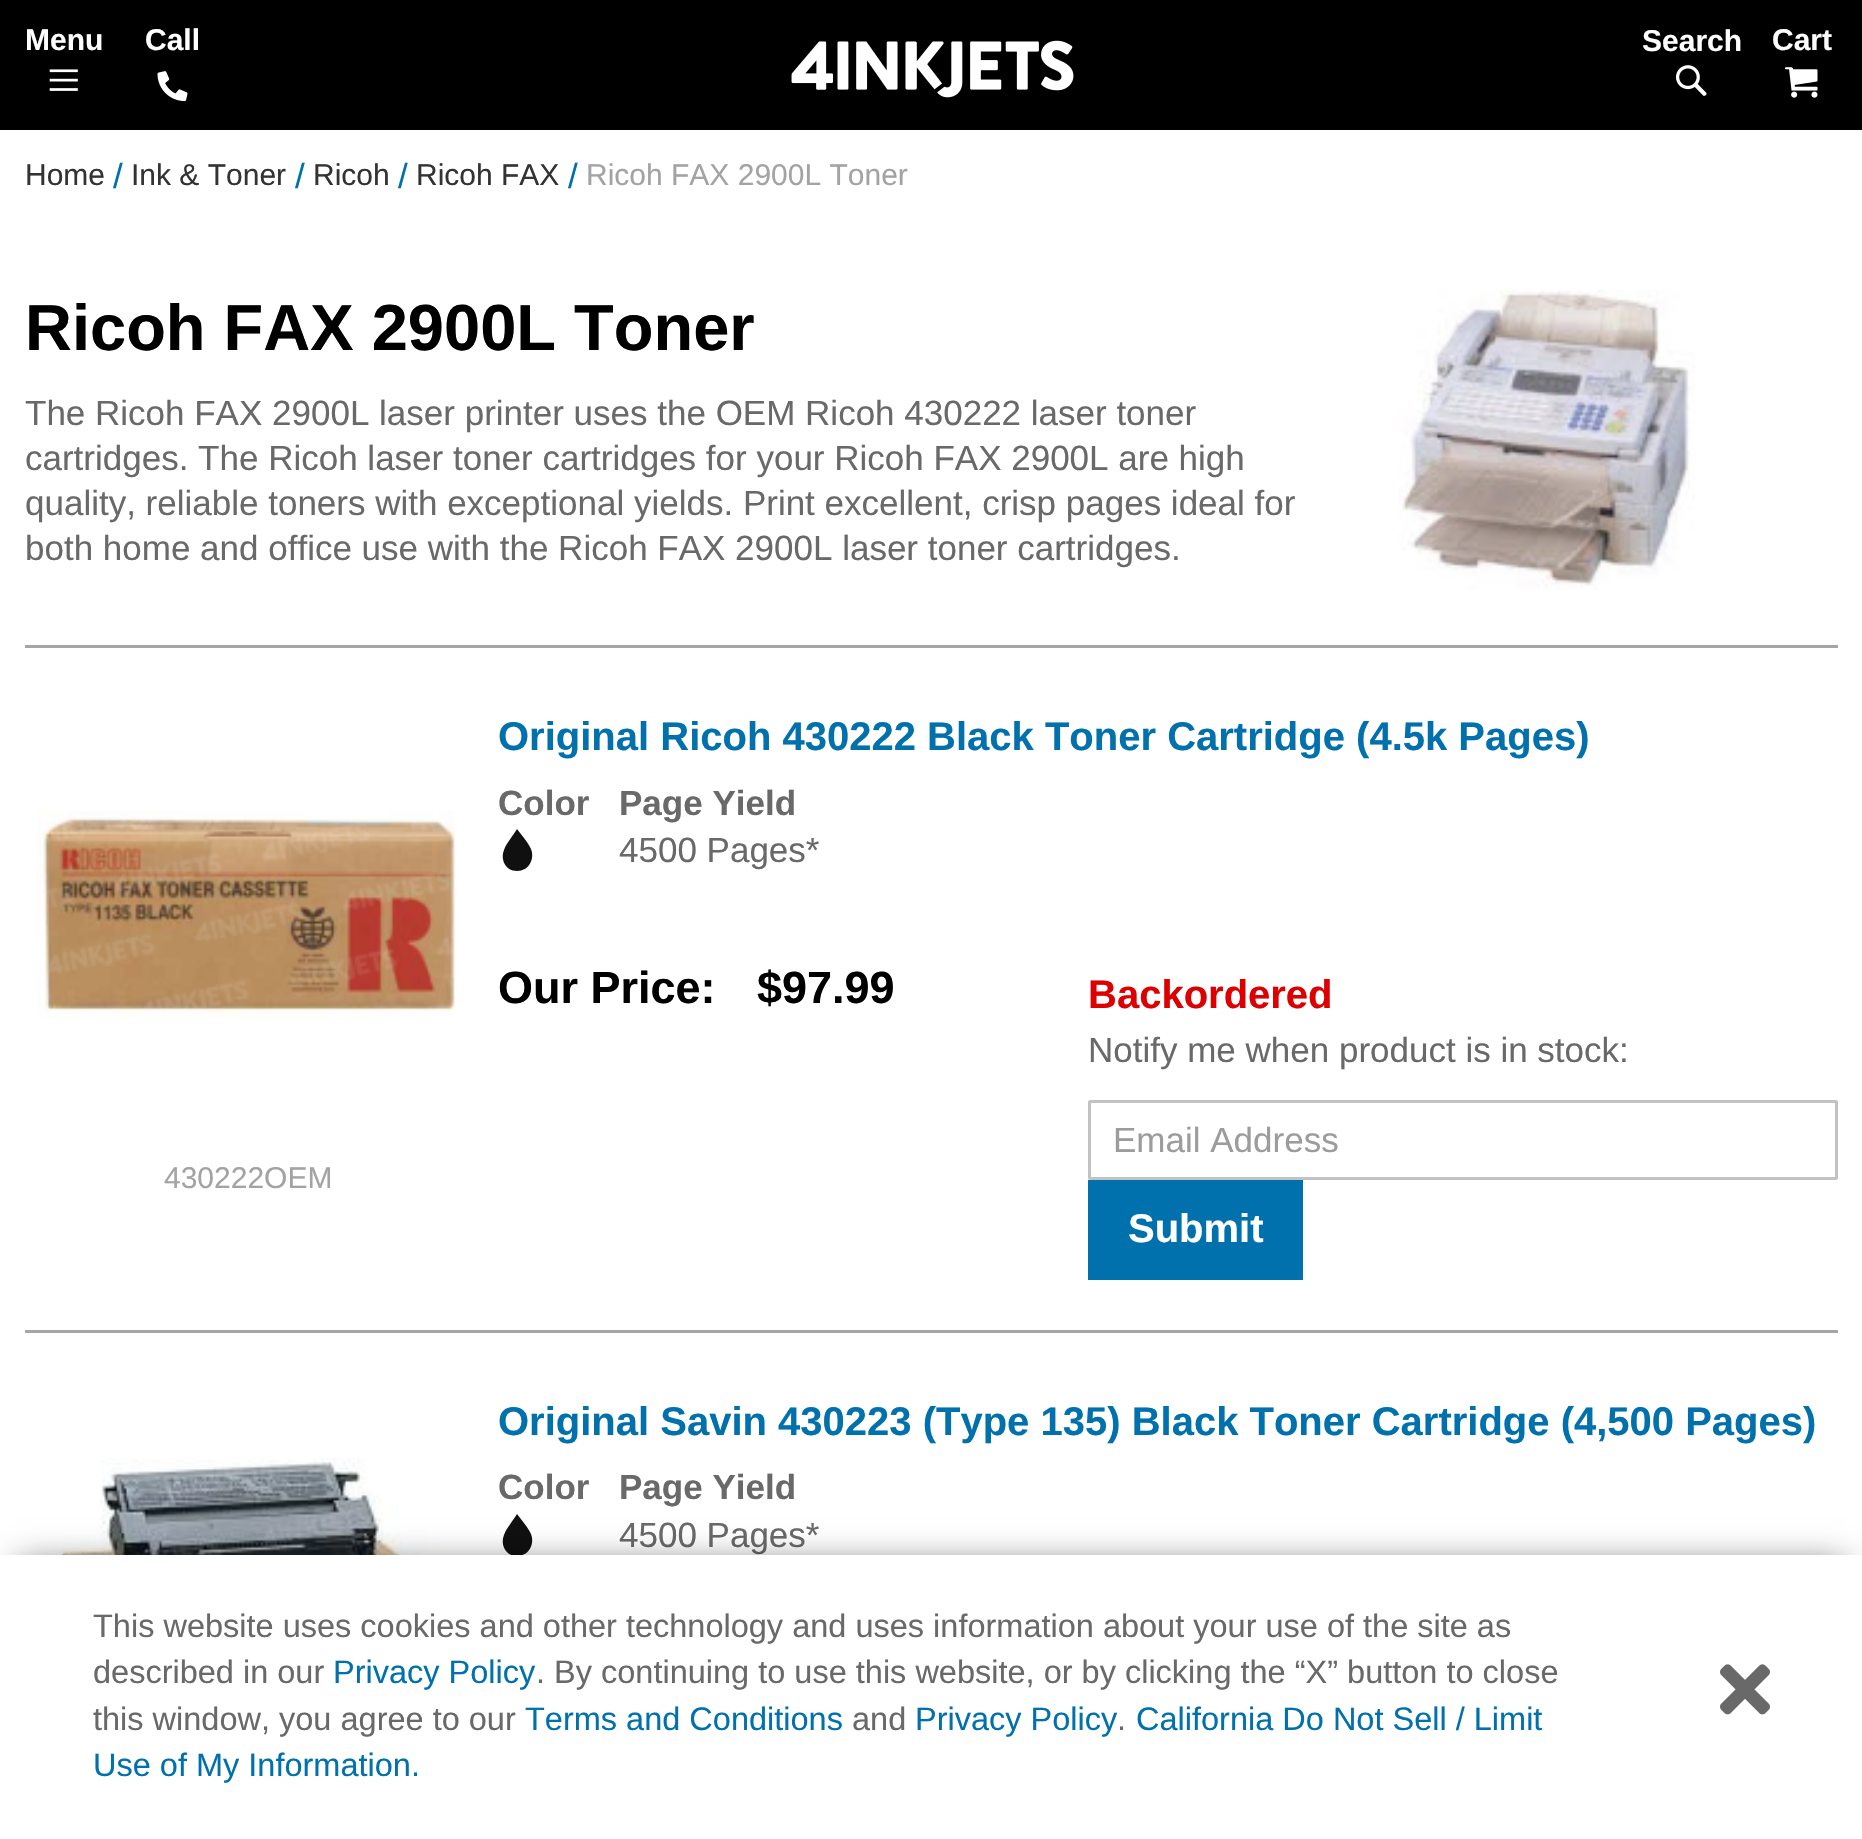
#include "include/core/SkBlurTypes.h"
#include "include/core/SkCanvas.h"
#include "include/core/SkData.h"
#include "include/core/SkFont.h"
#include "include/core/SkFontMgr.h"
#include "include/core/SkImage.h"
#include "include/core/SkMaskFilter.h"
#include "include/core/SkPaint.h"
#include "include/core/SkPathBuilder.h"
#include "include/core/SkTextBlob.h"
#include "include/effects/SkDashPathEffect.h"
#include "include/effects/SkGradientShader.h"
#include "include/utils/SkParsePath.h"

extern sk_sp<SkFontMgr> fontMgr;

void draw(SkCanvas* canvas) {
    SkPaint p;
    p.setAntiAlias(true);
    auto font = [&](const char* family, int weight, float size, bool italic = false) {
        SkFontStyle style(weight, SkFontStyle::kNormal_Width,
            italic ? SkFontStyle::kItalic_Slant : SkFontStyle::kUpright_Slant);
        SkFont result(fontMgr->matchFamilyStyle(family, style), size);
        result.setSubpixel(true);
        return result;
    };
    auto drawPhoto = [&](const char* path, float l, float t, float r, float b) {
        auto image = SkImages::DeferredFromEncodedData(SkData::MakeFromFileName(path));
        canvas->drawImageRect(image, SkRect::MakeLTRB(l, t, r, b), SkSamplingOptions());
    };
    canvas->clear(0xFFFFFFFF);
    p.setColor(0xFF000000);
    canvas->drawRect(SkRect::MakeLTRB(0, 0, 1862, 130), p);
    auto font1 = font("Liberation Sans", 700, 30);
    p.setColor(0xFFFFFFFF);
    canvas->drawString("Menu", 25, 50, font1, p);
    drawPhoto("media/1.png", 49, 69, 78, 91);
    canvas->drawString("Call", 145, 50, font1, p);
    drawPhoto("media/2.png", 157, 71, 188, 102);
    drawPhoto("media/3.png", 791, 40, 1074, 98);
    canvas->drawString("Search", 1642, 51, font1, p);
    drawPhoto("media/4.png", 1675, 65, 1707, 96);
    canvas->drawString("Cart", 1772, 50, font1, p);
    drawPhoto("media/5.png", 1785, 67, 1818, 98);
    auto font2 = font("Liberation Sans", 400, 30);
    p.setColor(0xFF333333);
    canvas->drawString("Home", 25, 185, font2, p);
    auto font3 = font("Liberation Sans", 400, 35);
    p.setColor(0xFF0171AD);
    canvas->drawString("/", 113, 188, font3, p);
    p.setColor(0xFF333333);
    canvas->drawString("Ink & Toner", 131, 185, font2, p);
    p.setColor(0xFF0171AD);
    canvas->drawString("/", 295, 188, font3, p);
    p.setColor(0xFF333333);
    canvas->drawString("Ricoh", 313, 185, font2, p);
    p.setColor(0xFF0171AD);
    canvas->drawString("/", 398, 188, font3, p);
    p.setColor(0xFF333333);
    canvas->drawString("Ricoh FAX", 416, 185, font2, p);
    p.setColor(0xFF0171AD);
    canvas->drawString("/", 568, 188, font3, p);
    p.setColor(0xFFA3A3A3);
    canvas->drawString("Ricoh FAX 2900L Toner", 586, 185, font2, p);
    auto font4 = font("Liberation Sans", 700, 65);
    p.setColor(0xFF000000);
    canvas->drawString("Ricoh FAX 2900L Toner", 25, 350, font4, p);
    p.setColor(0xFF696969);
    {
        const struct { const char* s; float x, y; } items[] = {
            {"The Ricoh FAX 2900L laser printer uses the OEM Ricoh 430222 laser toner", 25, 425},
            {"cartridges. The Ricoh laser toner cartridges for your Ricoh FAX 2900L are high", 25, 470},
            {"quality, reliable toners with exceptional yields. Print excellent, crisp pages ideal for", 25, 515},
            {"both home and office use with the Ricoh FAX 2900L laser toner cartridges.", 25, 560},
        };
        for (auto [s, x, y] : items) {
            canvas->drawString(s, x, y, font3, p);
        }
    }
    drawPhoto("media/6.png", 1398, 290, 1695, 590);
    p.setColor(0xFFA5A5A5);
    canvas->drawRect(SkRect::MakeLTRB(25, 645, 1838, 648), p);
    drawPhoto("media/7.png", 37, 810, 455, 1019);
    p.setColor(0xFFA3A3A3);
    canvas->drawString("430222OEM", 164, 1188, font2, p);
    auto font5 = font("Liberation Sans", 700, 40);
    p.setColor(0xFF0171AD);
    canvas->drawString("Original Ricoh 430222 Black Toner Cartridge (4.5k Pages)", 498, 750, font5, p);
    auto font6 = font("Liberation Sans", 700, 35);
    p.setColor(0xFF696969);
    canvas->drawString("Color", 498, 815, font6, p);
    p.setColor(0xFF101010);
    canvas->drawPath(SkPathBuilder().moveTo(517, 871).cubicTo(506, 871, 500, 860, 504, 850).cubicTo(507, 842, 513, 836, 517, 829).cubicTo(522, 836, 528, 842, 531, 849).cubicTo(535, 859, 529, 871, 517, 871).close().detach(), p);
    p.setColor(0xFF696969);
    canvas->drawString("Page Yield", 619, 815, font6, p);
    canvas->drawString("4500 Pages*", 619, 862, font3, p);
    auto font7 = font("Liberation Sans", 700, 45);
    p.setColor(0xFF000000);
    canvas->drawString("Our Price:", 498, 1003, font7, p);
    canvas->drawString("$97.99", 757, 1003, font7, p);
    p.setColor(0xFFDE0000);
    canvas->drawString("Backordered", 1088, 1008, font5, p);
    p.setColor(0xFF696969);
    canvas->drawString("Notify me when product is in stock:", 1088, 1062, font3, p);
    p.setStyle(SkPaint::kStroke_Style);
    p.setStrokeWidth(3);
    p.setColor(0xFFC2C2C2);
    canvas->drawRoundRect(SkRect::MakeLTRB(1089.5f, 1101.5f, 1836.5f, 1178.5f), 1, 1, p);
    p.setStyle(SkPaint::kFill_Style);
    p.setColor(0xFF9C9C9C);
    canvas->drawString("Email Address", 1113, 1152, font3, p);
    p.setColor(0xFF0171AD);
    canvas->drawRect(SkRect::MakeLTRB(1088, 1180, 1303, 1280), p);
    p.setColor(0xFFFFFFFF);
    canvas->drawString("Submit", 1128, 1242, font5, p);
    p.setColor(0xFFA5A5A5);
    canvas->drawRect(SkRect::MakeLTRB(25, 1330, 1838, 1333), p);
    drawPhoto("media/8.png", 59, 1458, 440, 1555);
    p.setColor(0xFF0171AD);
    canvas->drawString("Original Savin 430223 (Type 135) Black Toner Cartridge (4,500 Pages)", 498, 1435, font5, p);
    p.setColor(0xFF696969);
    canvas->drawString("Color", 498, 1499, font6, p);
    p.setColor(0xFF101010);
    canvas->drawPath(SkPathBuilder().moveTo(517, 1556).cubicTo(506, 1556, 500, 1545, 504, 1535).cubicTo(507, 1527, 513, 1521, 517, 1514).cubicTo(522, 1521, 528, 1527, 531, 1534).cubicTo(535, 1544, 529, 1556, 517, 1556).close().detach(), p);
    p.setColor(0xFF696969);
    canvas->drawString("Page Yield", 619, 1499, font6, p);
    canvas->drawString("4500 Pages*", 619, 1547, font3, p);
    p.setColor(0xA3000000);
    p.setMaskFilter(SkMaskFilter::MakeBlur(kNormal_SkBlurStyle, 16));
    canvas->drawRect(SkRect::MakeLTRB(18, 1565, 1845, 1815), p);
    p.setMaskFilter(nullptr);
    p.setColor(0xFFFFFFFF);
    canvas->drawRect(SkRect::MakeLTRB(0, 1555, 1862, 1839), p);
    auto font8 = font("Liberation Sans", 400, 32.5f);
    p.setColor(0xFF696969);
    canvas->drawString("This website uses cookies and other technology and uses information about your use of the site as", 93, 1637, font8, p);
    canvas->drawString("described in our", 93, 1683, font8, p);
    p.setColor(0xFF0171AD);
    canvas->drawString("Privacy Policy", 333, 1683, font8, p);
    p.setColor(0xFF696969);
    canvas->drawString(". By continuing to use this website, or by clicking the “X” button to close", 536, 1683, font8, p);
    canvas->drawString("this window, you agree to our", 93, 1730, font8, p);
    p.setColor(0xFF0171AD);
    canvas->drawString("Terms and Conditions", 525, 1730, font8, p);
    p.setColor(0xFF696969);
    canvas->drawString("and", 852, 1730, font8, p);
    p.setColor(0xFF0171AD);
    canvas->drawString("Privacy Policy", 915, 1730, font8, p);
    p.setColor(0xFF696969);
    canvas->drawString(".", 1117, 1730, font8, p);
    p.setColor(0xFF0171AD);
    canvas->drawString("California Do Not Sell / Limit", 1136, 1730, font8, p);
    canvas->drawString("Use of My Information.", 93, 1776, font8, p);
    drawPhoto("media/9.png", 1720, 1664, 1770, 1715);
}
